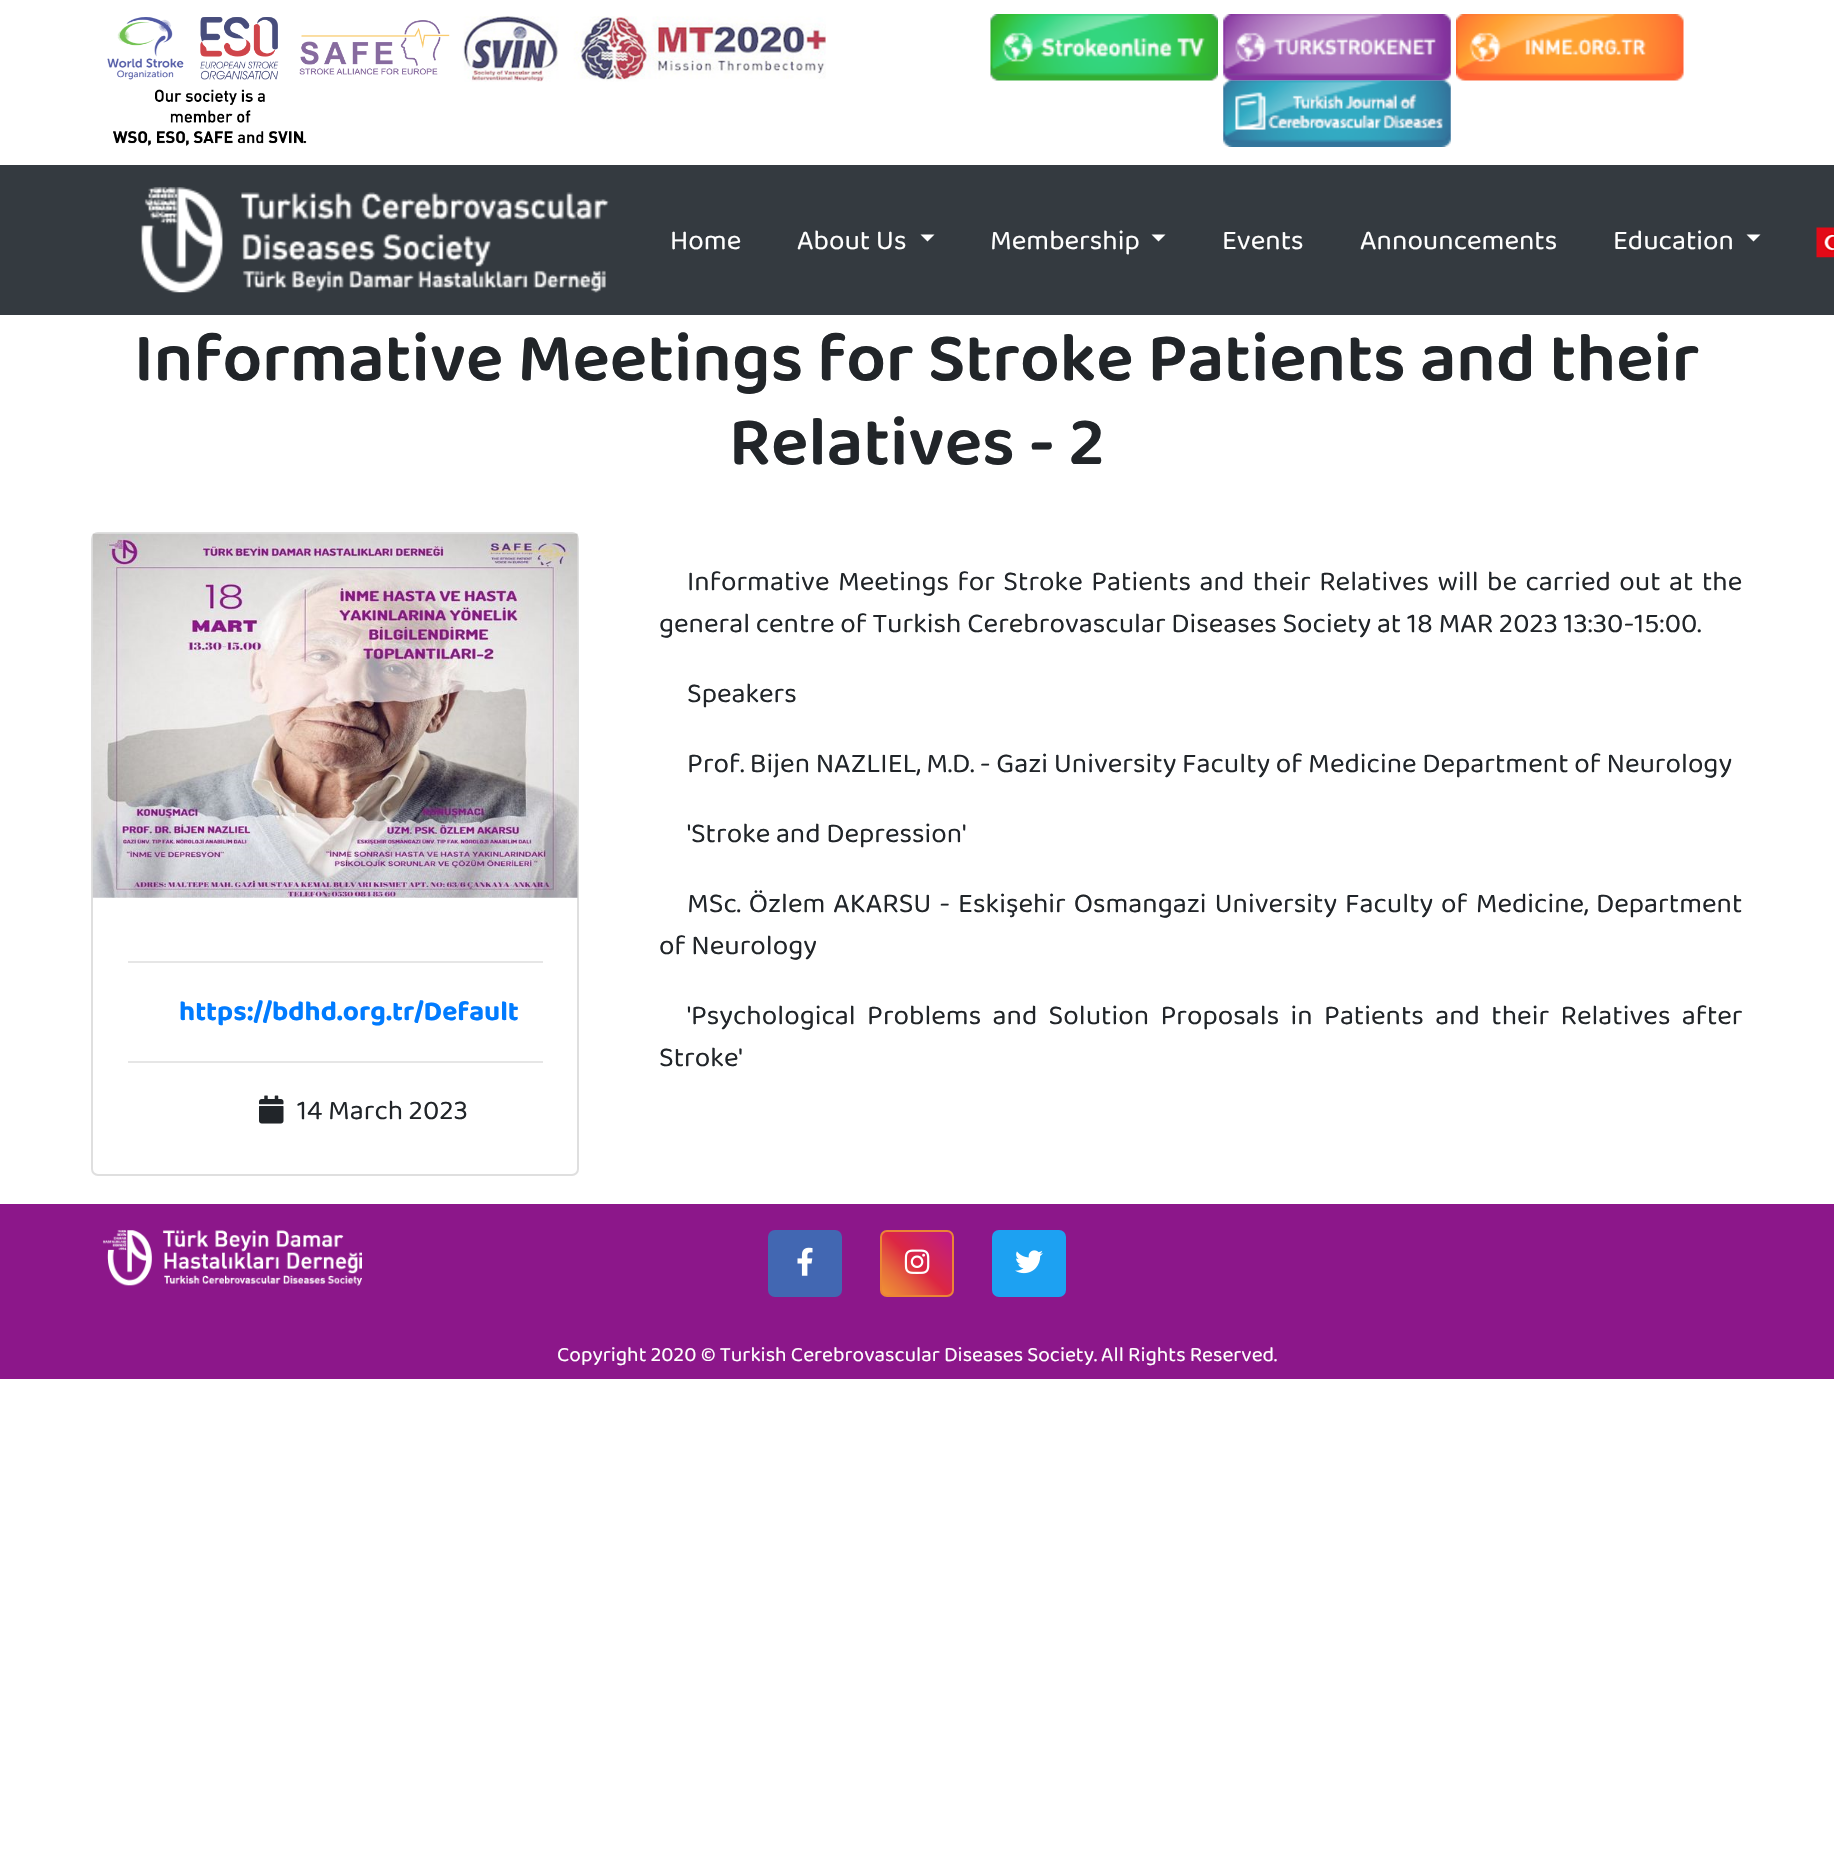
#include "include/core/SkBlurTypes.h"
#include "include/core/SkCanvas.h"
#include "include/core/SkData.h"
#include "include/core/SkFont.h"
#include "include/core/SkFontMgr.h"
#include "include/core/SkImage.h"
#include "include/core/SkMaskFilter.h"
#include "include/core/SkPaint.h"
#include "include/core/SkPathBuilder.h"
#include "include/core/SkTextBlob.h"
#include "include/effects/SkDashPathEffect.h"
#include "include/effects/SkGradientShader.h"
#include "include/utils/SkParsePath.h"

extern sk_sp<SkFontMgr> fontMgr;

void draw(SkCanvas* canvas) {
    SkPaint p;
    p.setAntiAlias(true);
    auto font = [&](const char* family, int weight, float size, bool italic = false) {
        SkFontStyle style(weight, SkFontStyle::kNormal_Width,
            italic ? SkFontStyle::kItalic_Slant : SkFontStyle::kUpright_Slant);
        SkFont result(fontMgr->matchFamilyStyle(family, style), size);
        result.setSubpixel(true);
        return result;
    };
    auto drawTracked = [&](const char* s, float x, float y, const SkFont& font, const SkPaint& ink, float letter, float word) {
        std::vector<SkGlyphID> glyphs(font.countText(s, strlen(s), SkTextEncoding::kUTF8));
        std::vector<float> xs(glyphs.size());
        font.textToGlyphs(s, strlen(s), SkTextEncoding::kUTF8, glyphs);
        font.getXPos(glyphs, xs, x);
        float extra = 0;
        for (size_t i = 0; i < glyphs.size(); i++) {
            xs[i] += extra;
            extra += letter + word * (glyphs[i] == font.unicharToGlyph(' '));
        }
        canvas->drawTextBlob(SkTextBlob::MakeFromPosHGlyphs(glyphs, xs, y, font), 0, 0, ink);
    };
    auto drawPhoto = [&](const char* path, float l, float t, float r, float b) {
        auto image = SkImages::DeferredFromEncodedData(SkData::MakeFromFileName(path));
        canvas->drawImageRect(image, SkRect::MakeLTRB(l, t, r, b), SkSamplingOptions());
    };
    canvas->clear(0xFFFFFFFF);
    drawPhoto("media/1.png", 107, 17, 184, 80);
    drawPhoto("media/2.png", 200, 17, 279, 80);
    drawPhoto("media/3.png", 299, 20, 450, 75);
    drawPhoto("media/4.png", 463, 16, 826, 82);
    drawPhoto("media/5.png", 113, 89, 307, 146);
    drawPhoto("media/6.png", 990, 14, 1218, 81);
    drawPhoto("media/7.png", 1223, 14, 1451, 81);
    drawPhoto("media/8.png", 1456, 14, 1684, 81);
    drawPhoto("media/9.png", 1223, 80, 1451, 147);
    p.setColor(0xFF343A40);
    canvas->drawRect(SkRect::MakeLTRB(0, 165, 1834, 315), p);
    drawPhoto("media/10.png", 141, 187, 610, 293);
    auto font1 = font("Baloo Chettan 2", 400, 28);
    p.setColor(0xFFFFFFFF);
    canvas->drawString("Home", 670, 249, font1, p);
    canvas->drawString("About Us", 797, 249, font1, p);
    canvas->drawPath(SkPathBuilder().moveTo(920.5f, 234.5f).lineTo(934.5f, 234.5f).lineTo(927.5f, 241.5f).close().detach(), p);
    canvas->drawString("Membership", 990, 249, font1, p);
    canvas->drawPath(SkPathBuilder().moveTo(1151.5f, 234.5f).lineTo(1165.5f, 234.5f).lineTo(1158.5f, 241.5f).close().detach(), p);
    {
        const struct { const char* s; float x, y; } items[] = {
            {"Events", 1222, 249},
            {"Announcements", 1360, 249},
            {"Education", 1613, 249},
        };
        for (auto [s, x, y] : items) {
            canvas->drawString(s, x, y, font1, p);
        }
    }
    canvas->drawPath(SkPathBuilder().moveTo(1746.5f, 234.5f).lineTo(1760.5f, 234.5f).lineTo(1753.5f, 241.5f).close().detach(), p);
    drawPhoto("media/11.png", 1816, 227, 1834, 258);
    auto font2 = font("Baloo Chettan 2", 600, 70);
    p.setColor(0xFF212529);
    canvas->drawString("Informative Meetings for Stroke Patients and their", 134, 380, font2, p);
    canvas->drawString("Relatives - 2", 729, 464, font2, p);
    p.setStyle(SkPaint::kStroke_Style);
    p.setStrokeWidth(2);
    p.setColor(0xFFDFDFDF);
    canvas->drawRoundRect(SkRect::MakeLTRB(92, 533, 578, 1175), 6, 6, p);
    drawPhoto("media/12.png", 92, 533, 578, 898);
    p.setStyle(SkPaint::kFill_Style);
    p.setColor(0xFFE6E6E6);
    canvas->drawRect(SkRect::MakeLTRB(128, 961, 543, 963), p);
    auto font3 = font("Baloo Chettan 2", 700, 28);
    p.setColor(0xFF007BFF);
    canvas->drawString("https://bdhd.org.tr/Default", 179, 1020, font3, p);
    p.setColor(0xFFE6E6E6);
    canvas->drawRect(SkRect::MakeLTRB(128, 1061, 543, 1063), p);
    drawPhoto("media/13.png", 259, 1095, 284, 1124);
    p.setColor(0xFF212529);
    canvas->drawString("14 March 2023", 297, 1119, font1, p);
    drawTracked("Informative Meetings for Stroke Patients and their Relatives will be carried out at the", 687, 590, font1, p, 0, 2.9f);
    {
        const struct { const char* s; float x, y; } items[] = {
            {"general centre of Turkish Cerebrovascular Diseases Society at 18 MAR 2023 13:30-15:00.", 659, 632},
            {"Speakers", 687, 702},
            {"Prof. Bijen NAZLIEL, M.D. - Gazi University Faculty of Medicine Department of Neurology", 687, 772},
            {"'Stroke and Depression'", 687, 842},
        };
        for (auto [s, x, y] : items) {
            canvas->drawString(s, x, y, font1, p);
        }
    }
    drawTracked("MSc. Özlem AKARSU - Eskişehir Osmangazi University Faculty of Medicine, Department", 687, 912, font1, p, 0, 2.25f);
    canvas->drawString("of Neurology", 659, 954, font1, p);
    drawTracked("'Psychological Problems and Solution Proposals in Patients and their Relatives after", 687, 1024, font1, p, 0, 5.75f);
    canvas->drawString("Stroke'", 659, 1066, font1, p);
    p.setColor(0xFF8C178A);
    canvas->drawRect(SkRect::MakeLTRB(0, 1204, 1834, 1379), p);
    drawPhoto("media/14.png", 103, 1230, 362, 1287);
    p.setColor(0xFF4267B2);
    canvas->drawRoundRect(SkRect::MakeLTRB(769, 1231, 841, 1296), 6, 6, p);
    p.setStyle(SkPaint::kStroke_Style);
    canvas->drawRoundRect(SkRect::MakeLTRB(769, 1231, 841, 1296), 6, 6, p);
    drawPhoto("media/15.png", 797, 1247, 813, 1276);
    p.setStyle(SkPaint::kFill_Style);
    {
        const SkColor colors[] = {0xFFF09433, 0xFFE6683C, 0xFFDC2743, 0xFFCC2366, 0xFFBC1888};
        const float stops[] = {0, 0.25f, 0.5f, 0.75f, 1};
        const SkPoint ends[] = {{884, 1297}, {950, 1230}};
        p.setShader(SkGradientShader::MakeLinear(ends, colors, stops, 5, SkTileMode::kClamp));
        p.setAlpha(255);
    }
    canvas->drawRect(SkRect::MakeLTRB(882, 1232, 952, 1295), p);
    p.setStyle(SkPaint::kStroke_Style);
    p.setShader(nullptr);
    p.setColor(0xFFEC8436);
    canvas->drawRoundRect(SkRect::MakeLTRB(881, 1231, 953, 1296), 6, 6, p);
    drawPhoto("media/16.png", 904, 1249, 930, 1274);
    p.setStyle(SkPaint::kFill_Style);
    p.setColor(0xFF1DA1F2);
    canvas->drawRoundRect(SkRect::MakeLTRB(993, 1231, 1065, 1296), 6, 6, p);
    p.setStyle(SkPaint::kStroke_Style);
    canvas->drawRoundRect(SkRect::MakeLTRB(993, 1231, 1065, 1296), 6, 6, p);
    drawPhoto("media/17.png", 1015, 1250, 1043, 1274);
    auto font4 = font("Baloo Chettan 2", 400, 21);
    p.setStyle(SkPaint::kFill_Style);
    p.setColor(0xFFFFFFFF);
    canvas->drawString("Copyright 2020 © Turkish Cerebrovascular Diseases Society. All Rights Reserved.", 557, 1361, font4, p);
}
